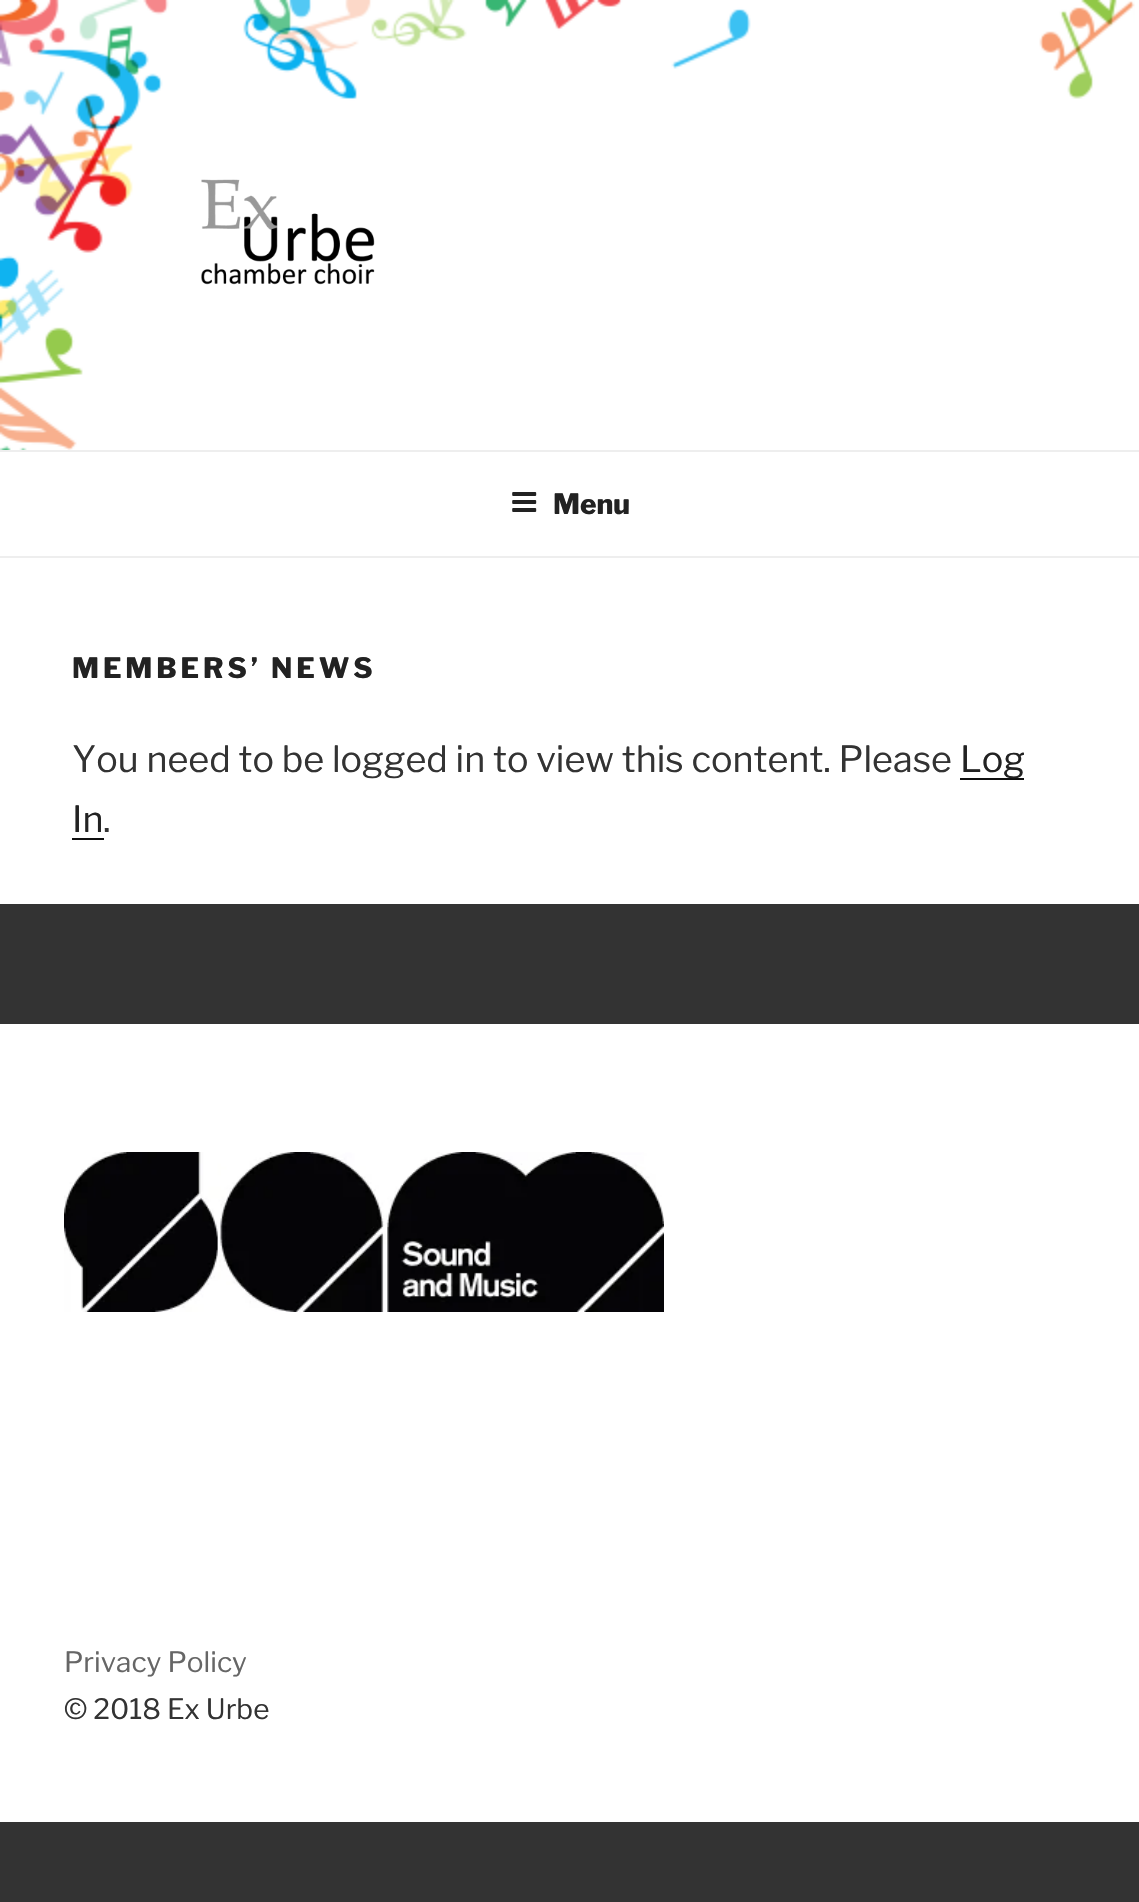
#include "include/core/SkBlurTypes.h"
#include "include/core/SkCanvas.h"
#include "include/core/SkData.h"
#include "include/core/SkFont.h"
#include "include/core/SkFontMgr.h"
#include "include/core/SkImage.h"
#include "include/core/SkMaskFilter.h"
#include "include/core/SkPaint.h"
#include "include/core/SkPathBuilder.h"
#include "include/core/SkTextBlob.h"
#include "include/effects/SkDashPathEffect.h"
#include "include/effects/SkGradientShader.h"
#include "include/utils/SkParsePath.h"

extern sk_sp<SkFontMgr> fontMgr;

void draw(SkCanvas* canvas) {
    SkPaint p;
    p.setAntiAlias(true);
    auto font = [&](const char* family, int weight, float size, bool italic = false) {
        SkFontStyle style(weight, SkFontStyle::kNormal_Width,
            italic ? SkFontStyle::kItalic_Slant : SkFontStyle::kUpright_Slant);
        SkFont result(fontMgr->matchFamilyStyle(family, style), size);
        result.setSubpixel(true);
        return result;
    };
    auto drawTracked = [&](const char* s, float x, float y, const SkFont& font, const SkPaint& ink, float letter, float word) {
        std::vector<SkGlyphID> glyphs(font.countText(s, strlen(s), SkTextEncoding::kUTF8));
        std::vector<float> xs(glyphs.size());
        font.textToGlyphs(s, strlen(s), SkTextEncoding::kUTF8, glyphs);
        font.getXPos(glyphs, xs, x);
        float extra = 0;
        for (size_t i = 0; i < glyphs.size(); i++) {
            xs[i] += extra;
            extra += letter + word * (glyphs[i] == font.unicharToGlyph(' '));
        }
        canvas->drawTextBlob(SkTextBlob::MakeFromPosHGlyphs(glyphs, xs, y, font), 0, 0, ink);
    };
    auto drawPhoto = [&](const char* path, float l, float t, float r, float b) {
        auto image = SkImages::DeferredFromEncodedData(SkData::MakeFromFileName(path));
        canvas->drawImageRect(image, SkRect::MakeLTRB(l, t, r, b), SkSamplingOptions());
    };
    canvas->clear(0xFFFFFFFF);
    drawPhoto("media/1.png", 0, 0, 1135, 450);
    drawPhoto("media/2.png", 201, 179, 375, 285);
    p.setColor(0xFFEEEEEE);
    canvas->drawRect(SkRect::MakeLTRB(0, 450, 1139, 452), p);
    canvas->drawRect(SkRect::MakeLTRB(0, 556, 1139, 558), p);
    drawPhoto("media/3.png", 512, 492, 537, 512);
    auto font1 = font("Libre Franklin", 100, 28);
    p.setColor(0xFF222222);
    canvas->drawString("Menu", 553, 514, font1, p);
    drawTracked("MEMBERS’ NEWS", 72, 678, font1, p, 3.9f, 0);
    auto font2 = font("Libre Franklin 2", 100, 36);
    p.setColor(0xFF333333);
    canvas->drawString("You need to be logged in to view this content. Please", 72, 772, font2, p);
    p.setColor(0xFF0F0F0F);
    canvas->drawRect(SkRect::MakeLTRB(960, 778, 1024, 780), p);
    p.setColor(0xFF222222);
    canvas->drawString("Log", 960, 772, font2, p);
    canvas->drawString("In", 72, 832, font2, p);
    p.setColor(0xFF0F0F0F);
    canvas->drawRect(SkRect::MakeLTRB(72, 838, 104, 840), p);
    p.setColor(0xFF333333);
    canvas->drawString(".", 103, 832, font2, p);
    canvas->drawRect(SkRect::MakeLTRB(0, 904, 1139, 1024), p);
    canvas->drawRect(SkRect::MakeLTRB(0, 1822, 1139, 1902), p);
    drawPhoto("media/4.png", 64, 1152, 664, 1312);
    auto font3 = font("Libre Franklin 2", 100, 28);
    p.setColor(0xFF666666);
    canvas->drawString("Privacy Policy", 64, 1672, font3, p);
    p.setColor(0xFF333333);
    canvas->drawString("© 2018 Ex Urbe", 64, 1719, font3, p);
}
